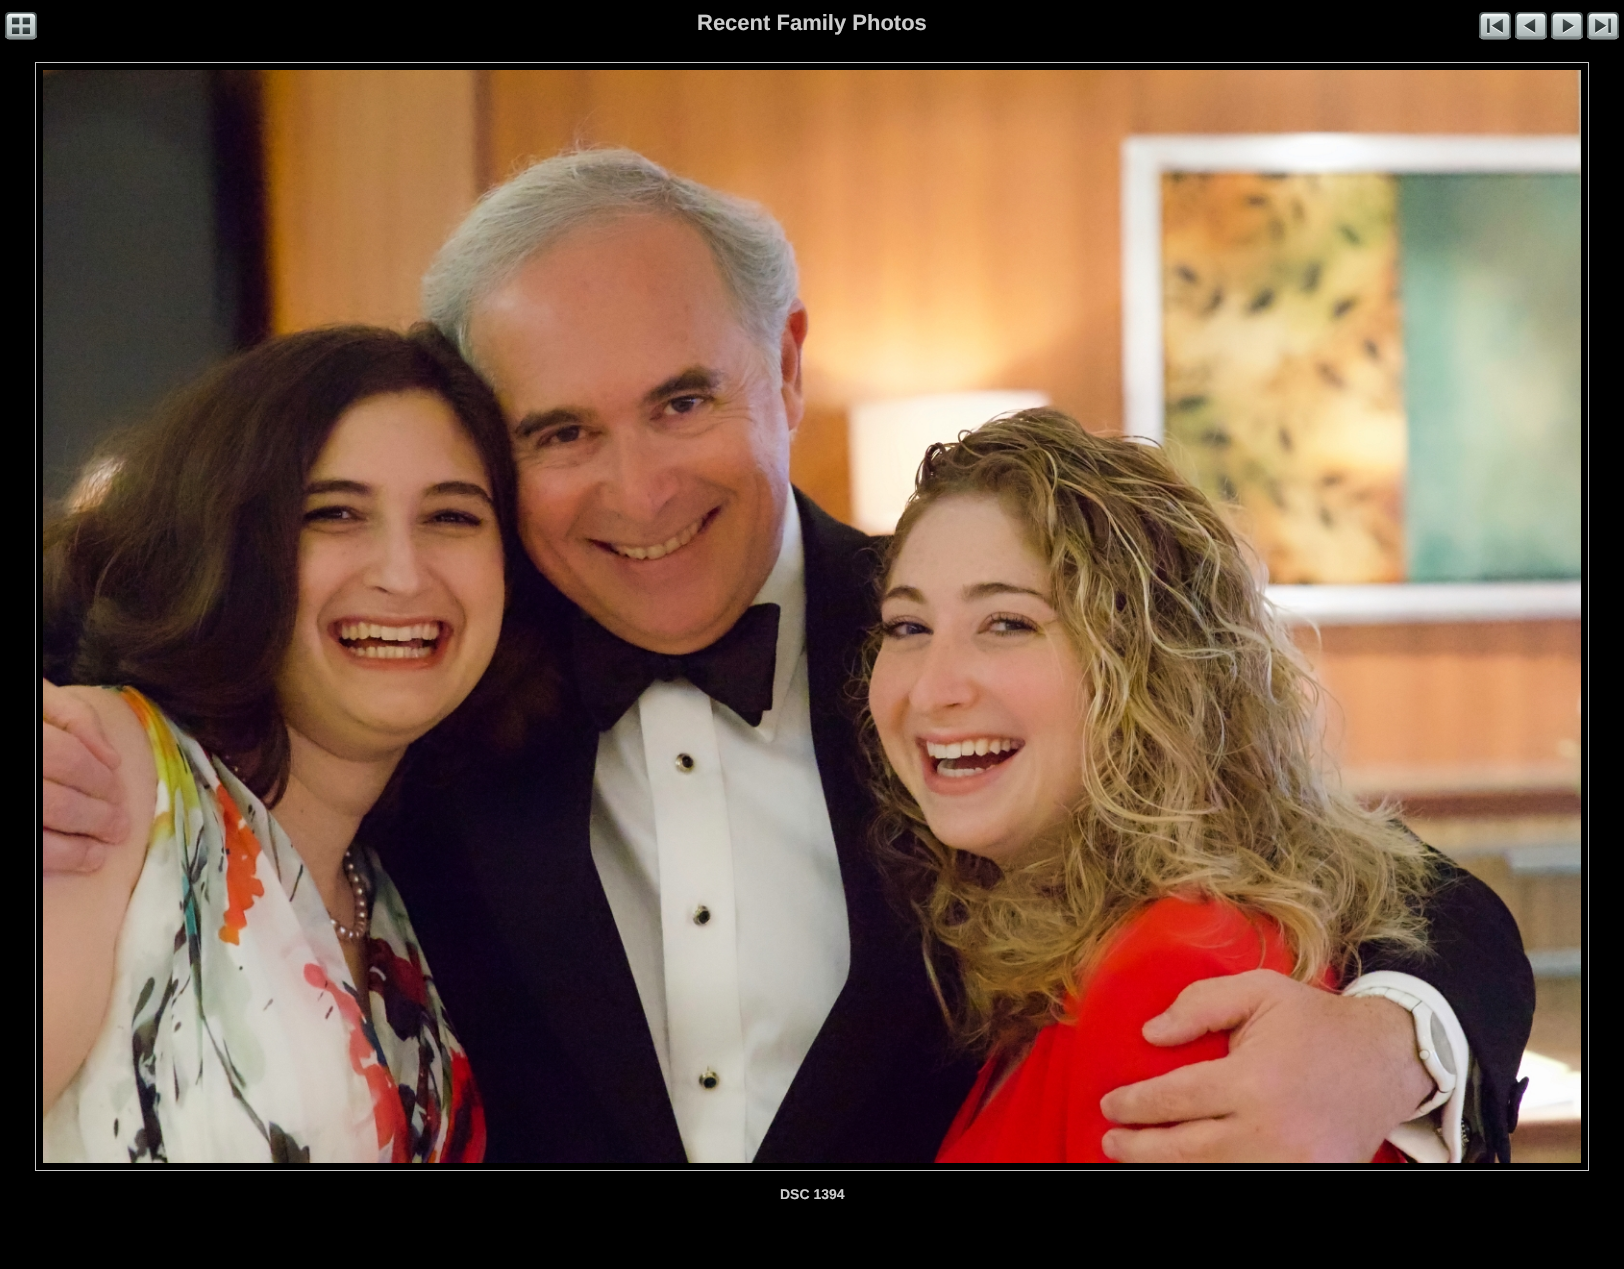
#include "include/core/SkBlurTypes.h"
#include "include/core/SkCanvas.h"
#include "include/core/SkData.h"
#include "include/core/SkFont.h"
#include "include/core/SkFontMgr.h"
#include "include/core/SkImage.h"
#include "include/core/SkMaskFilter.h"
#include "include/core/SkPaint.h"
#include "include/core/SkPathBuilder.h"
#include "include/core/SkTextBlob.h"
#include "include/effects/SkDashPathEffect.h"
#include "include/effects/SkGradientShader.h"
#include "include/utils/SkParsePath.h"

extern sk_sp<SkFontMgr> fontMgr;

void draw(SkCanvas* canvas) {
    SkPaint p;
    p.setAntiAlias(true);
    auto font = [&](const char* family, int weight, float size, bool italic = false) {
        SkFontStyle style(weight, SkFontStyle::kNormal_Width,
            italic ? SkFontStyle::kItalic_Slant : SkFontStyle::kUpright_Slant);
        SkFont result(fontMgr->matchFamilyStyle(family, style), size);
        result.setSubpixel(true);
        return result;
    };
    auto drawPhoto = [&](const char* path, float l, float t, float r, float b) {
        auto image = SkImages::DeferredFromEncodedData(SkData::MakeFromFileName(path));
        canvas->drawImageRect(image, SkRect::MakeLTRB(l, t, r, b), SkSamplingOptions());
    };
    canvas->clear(0xFF000000);
    drawPhoto("media/1.png", 5, 12, 37, 40);
    auto font1 = font("Liberation Sans", 700, 22);
    p.setColor(0xFFCCCCCC);
    canvas->drawString("Recent Family Photos", 697, 30, font1, p);
    drawPhoto("media/2.png", 1479, 12, 1511, 40);
    drawPhoto("media/3.png", 1515, 12, 1547, 40);
    drawPhoto("media/4.png", 1551, 12, 1583, 40);
    drawPhoto("media/5.png", 1587, 12, 1619, 40);
    p.setStyle(SkPaint::kStroke_Style);
    p.setStrokeWidth(1);
    canvas->drawRect(SkRect::MakeLTRB(35.5f, 62.5f, 1588.5f, 1170.5f), p);
    drawPhoto("media/6.png", 43, 70, 1581, 1163);
    auto font2 = font("Liberation Sans", 700, 14);
    p.setStyle(SkPaint::kFill_Style);
    canvas->drawString("DSC 1394", 780, 1199, font2, p);
}
